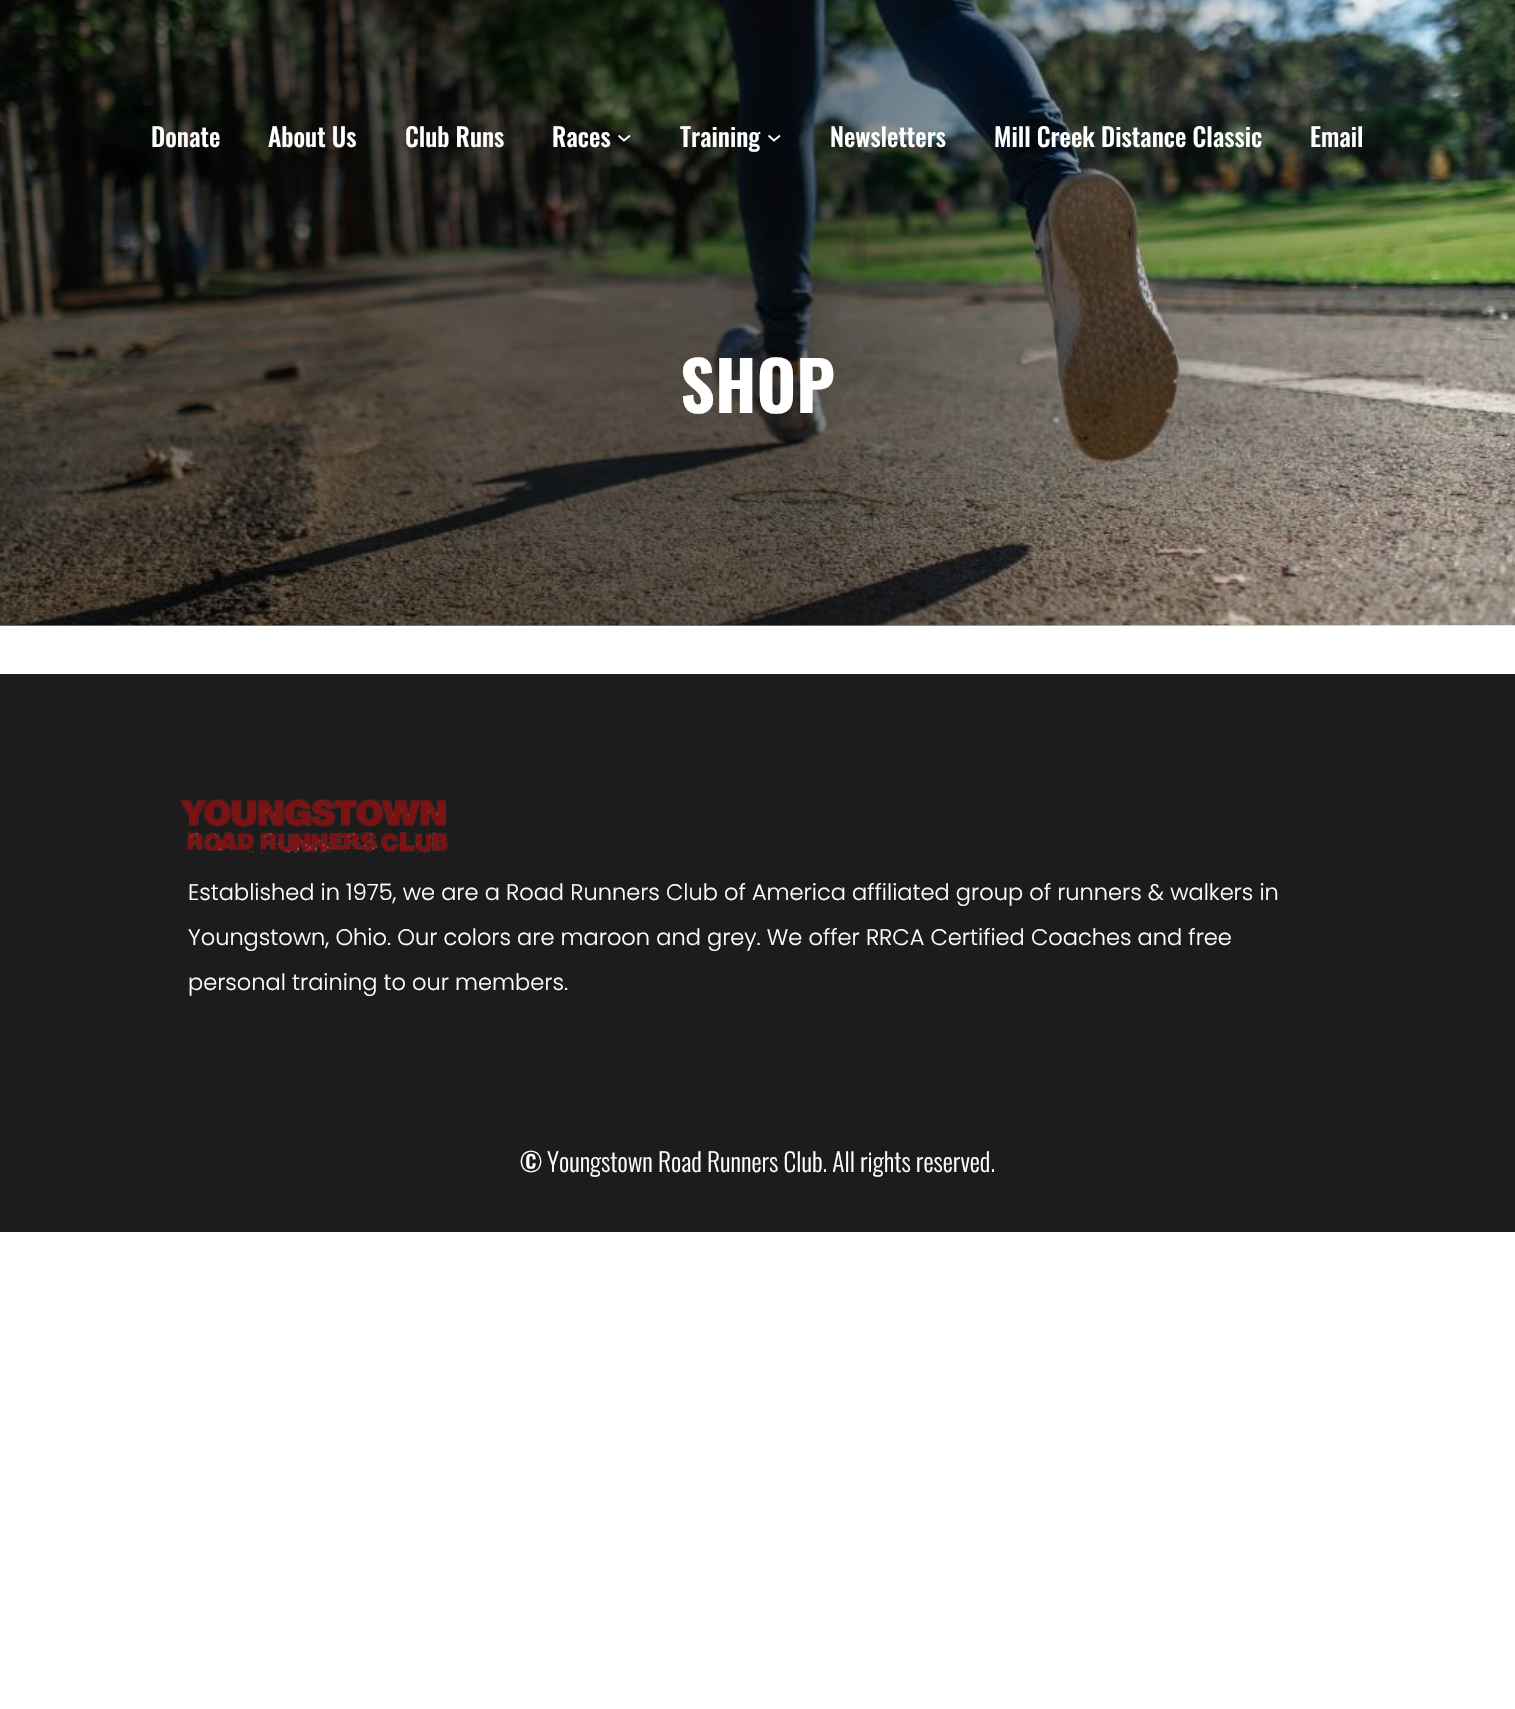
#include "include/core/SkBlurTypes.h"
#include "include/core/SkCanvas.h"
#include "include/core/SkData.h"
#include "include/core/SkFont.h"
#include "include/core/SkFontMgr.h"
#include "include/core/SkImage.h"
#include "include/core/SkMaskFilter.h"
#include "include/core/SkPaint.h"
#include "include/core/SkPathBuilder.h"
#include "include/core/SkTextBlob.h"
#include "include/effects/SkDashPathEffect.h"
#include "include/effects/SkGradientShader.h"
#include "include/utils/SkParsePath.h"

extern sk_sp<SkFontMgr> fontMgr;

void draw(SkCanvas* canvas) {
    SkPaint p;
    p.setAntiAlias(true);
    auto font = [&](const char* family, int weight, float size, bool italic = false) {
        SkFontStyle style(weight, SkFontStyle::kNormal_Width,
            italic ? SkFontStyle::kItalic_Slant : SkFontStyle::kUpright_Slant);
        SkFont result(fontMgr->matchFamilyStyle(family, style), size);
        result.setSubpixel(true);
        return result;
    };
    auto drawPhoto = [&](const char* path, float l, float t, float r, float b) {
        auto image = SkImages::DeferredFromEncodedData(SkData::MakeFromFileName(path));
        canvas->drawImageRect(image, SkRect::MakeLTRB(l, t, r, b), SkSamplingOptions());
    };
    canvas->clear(0xFFFFFFFF);
    drawPhoto("media/1.png", 0, 0, 1515, 626);
    {
        const SkColor colors[] = {0x80000000, 0x00000000};
        const float stops[] = {0.52f, 0.96f};
        const SkPoint ends[] = {{0, 313}, {1515, 313}};
        p.setShader(SkGradientShader::MakeLinear(ends, colors, stops, 2, SkTileMode::kClamp));
        p.setAlpha(255);
    }
    canvas->drawRect(SkRect::MakeLTRB(0, 0, 1426, 626), p);
    auto font1 = font("Oswald", 500, 25.5f);
    p.setShader(nullptr);
    p.setColor(0xFFFFFFFF);
    {
        const struct { const char* s; float x, y; } items[] = {
            {"Donate", 151, 147},
            {"About Us", 268, 147},
            {"Club Runs", 405, 147},
            {"Races", 552, 147},
        };
        for (auto [s, x, y] : items) {
            canvas->drawString(s, x, y, font1, p);
        }
    }
    p.setStyle(SkPaint::kStroke_Style);
    p.setStrokeWidth(1.9f);
    canvas->drawPath(SkPathBuilder().moveTo(618.5f, 135.5f).lineTo(624, 140.5f).lineTo(630, 135.5f).detach(), p);
    p.setStyle(SkPaint::kFill_Style);
    canvas->drawString("Training", 680, 147, font1, p);
    p.setStyle(SkPaint::kStroke_Style);
    canvas->drawPath(SkPathBuilder().moveTo(768.5f, 135.5f).lineTo(774, 140.5f).lineTo(780, 135.5f).detach(), p);
    p.setStyle(SkPaint::kFill_Style);
    {
        const struct { const char* s; float x, y; } items[] = {
            {"Newsletters", 830, 147},
            {"Mill Creek Distance Classic", 994, 147},
            {"Email", 1310, 147},
        };
        for (auto [s, x, y] : items) {
            canvas->drawString(s, x, y, font1, p);
        }
    }
    auto font2 = font("Oswald", 700, 68);
    canvas->drawString("SHOP", 680, 413, font2, p);
    p.setColor(0xFF1C1C1C);
    canvas->drawRect(SkRect::MakeLTRB(0, 674, 1515, 1232), p);
    drawPhoto("media/2.png", 180, 799, 450, 854);
    auto font3 = font("Poppins", 300, 22.5f);
    p.setColor(0xFFFFFFFF);
    {
        const struct { const char* s; float x, y; } items[] = {
            {"Established in 1975, we are a Road Runners Club of America affiliated group of runners & walkers in", 188, 900},
            {"Youngstown, Ohio. Our colors are maroon and grey. We offer RRCA Certified Coaches and free", 188, 945},
            {"personal training to our members.", 188, 990},
        };
        for (auto [s, x, y] : items) {
            canvas->drawString(s, x, y, font3, p);
        }
    }
    auto font4 = font("Oswald", 400, 25.5f);
    canvas->drawString("©", 520, 1172, font4, p);
    auto font5 = font("Oswald", 300, 25.5f);
    canvas->drawString("Youngstown Road Runners Club. All rights reserved.", 547, 1172, font5, p);
}
